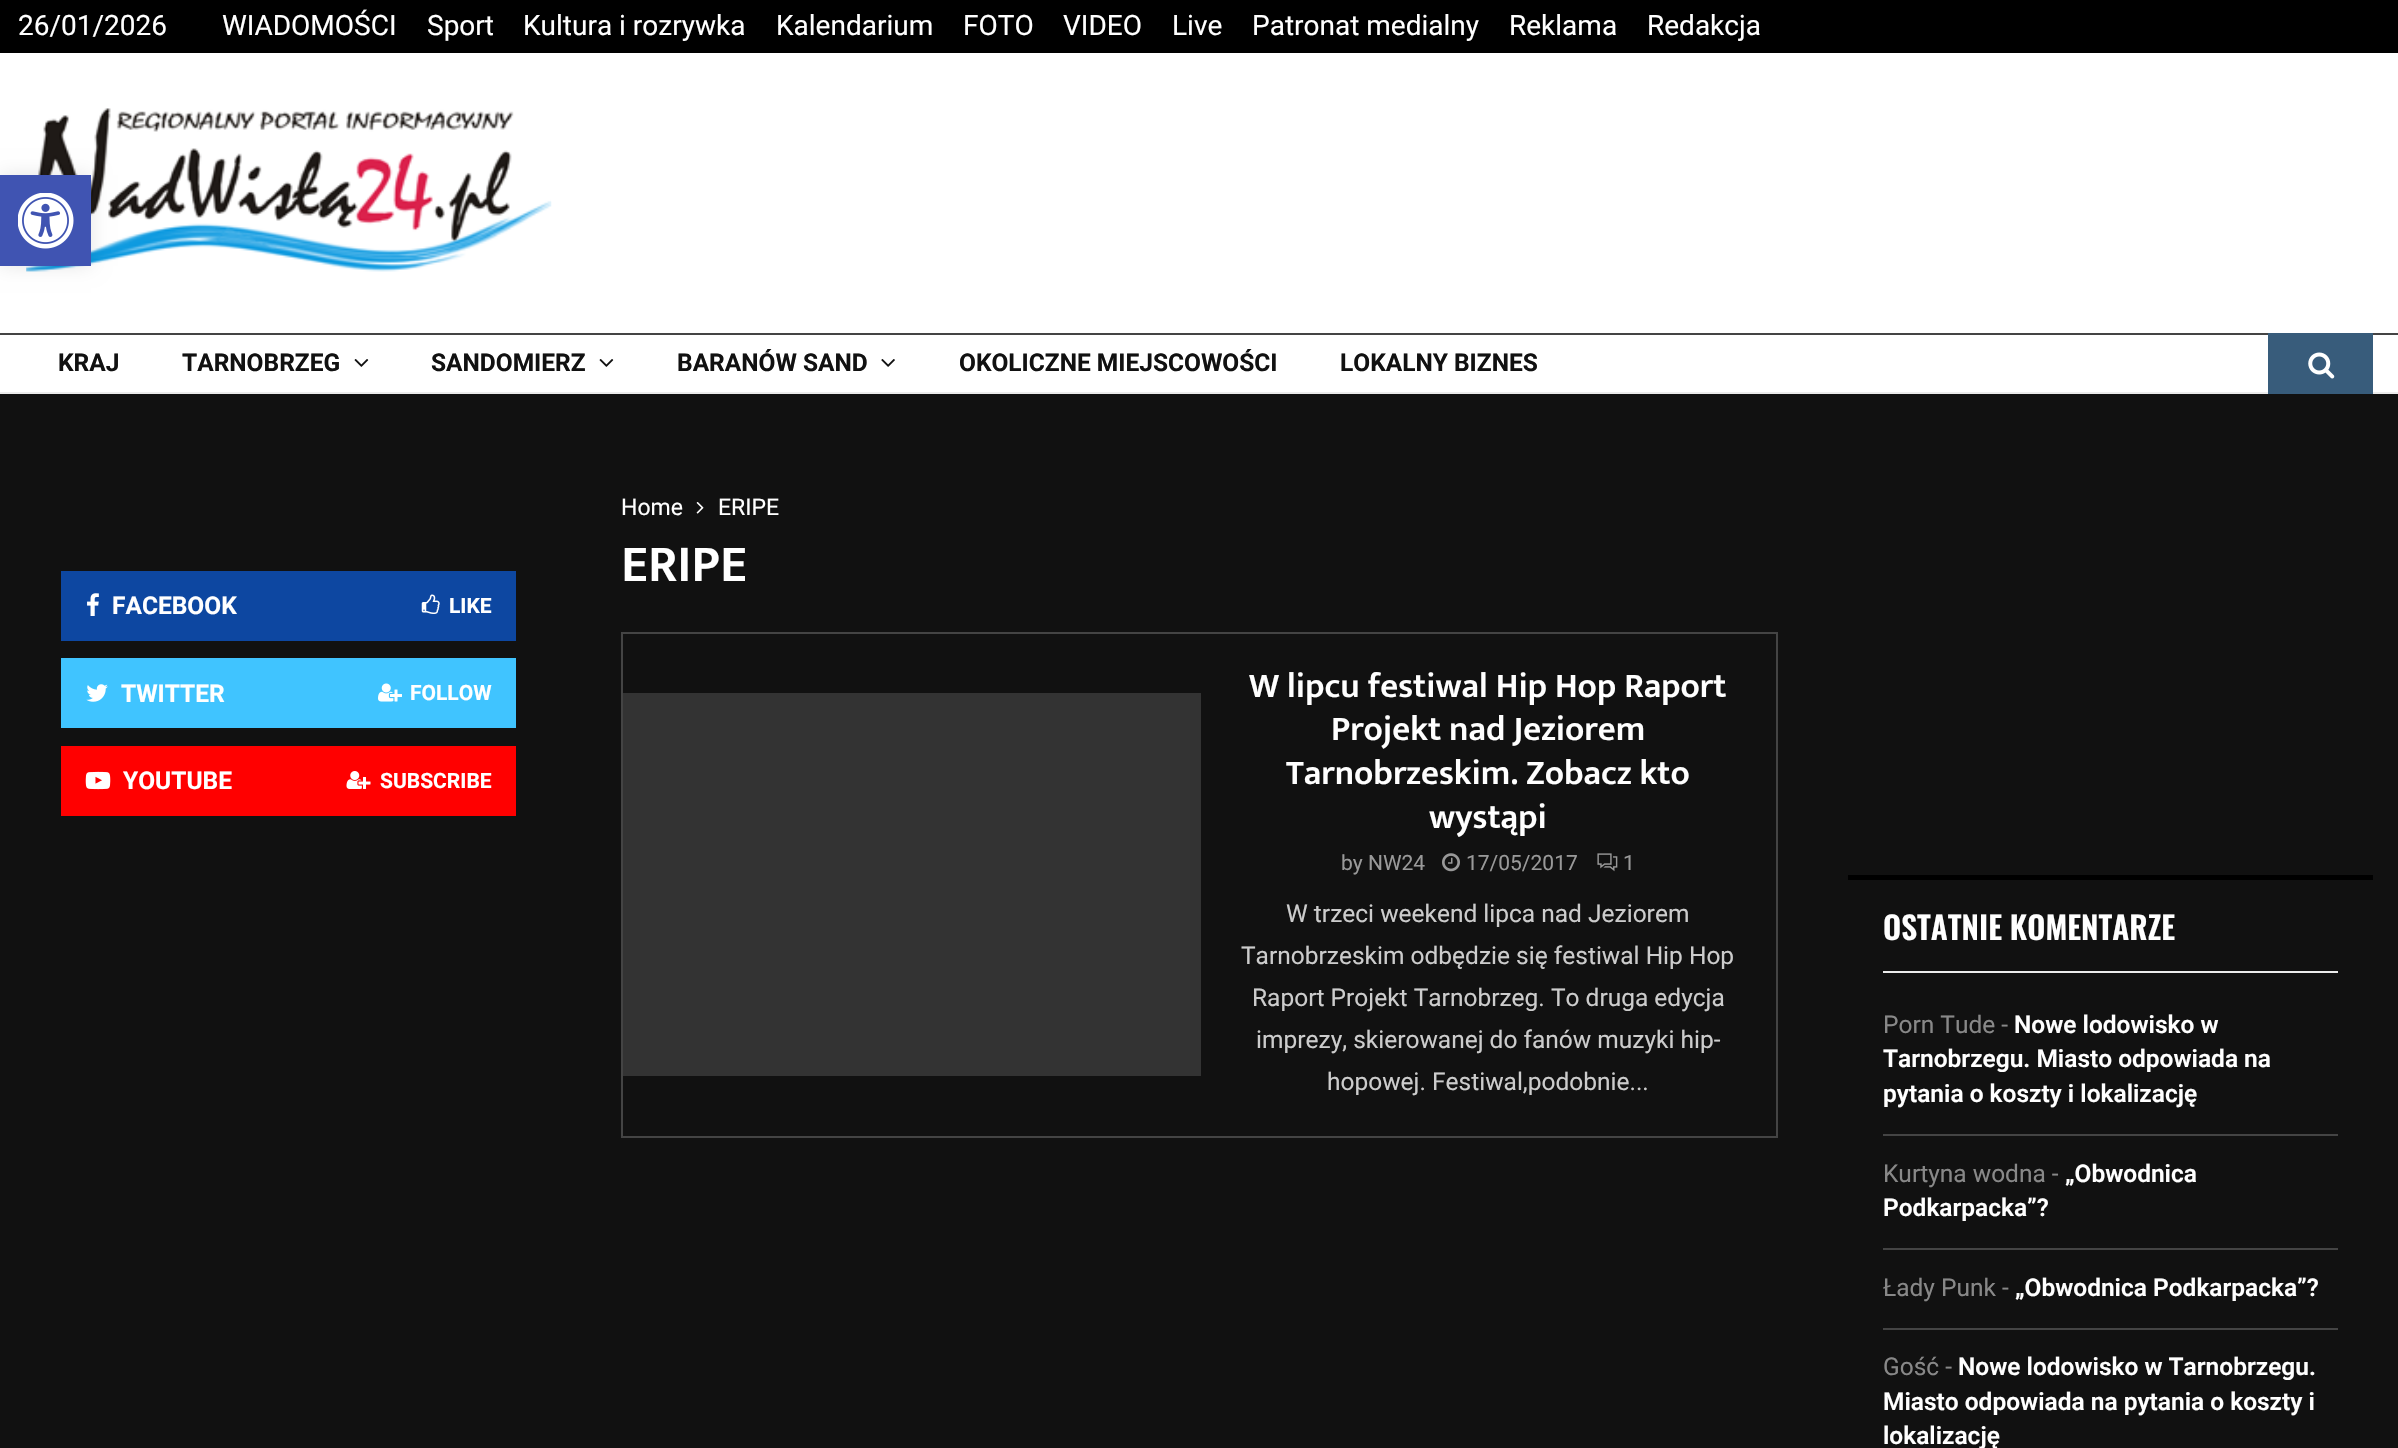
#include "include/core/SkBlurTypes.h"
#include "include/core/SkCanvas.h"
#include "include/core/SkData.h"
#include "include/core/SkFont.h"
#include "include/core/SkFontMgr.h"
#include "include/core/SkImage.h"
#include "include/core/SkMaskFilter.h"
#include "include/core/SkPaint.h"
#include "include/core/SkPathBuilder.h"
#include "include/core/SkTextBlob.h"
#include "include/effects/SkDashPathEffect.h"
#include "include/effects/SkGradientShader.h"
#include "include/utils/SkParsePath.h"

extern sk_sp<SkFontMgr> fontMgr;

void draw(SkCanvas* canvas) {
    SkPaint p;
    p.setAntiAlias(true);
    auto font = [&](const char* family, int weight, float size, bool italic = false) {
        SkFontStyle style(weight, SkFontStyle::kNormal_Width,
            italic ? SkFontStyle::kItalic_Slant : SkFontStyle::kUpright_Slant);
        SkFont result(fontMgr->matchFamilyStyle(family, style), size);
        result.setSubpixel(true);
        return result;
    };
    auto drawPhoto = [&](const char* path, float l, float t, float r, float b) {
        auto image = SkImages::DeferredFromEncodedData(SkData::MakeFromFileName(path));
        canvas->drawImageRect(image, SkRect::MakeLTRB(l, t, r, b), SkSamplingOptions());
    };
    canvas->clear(0xFF111111);
    p.setColor(0xFF000000);
    canvas->drawRect(SkRect::MakeLTRB(0, 0, 2398, 53), p);
    auto font1 = font("Roboto", 400, 28);
    p.setColor(0xFFFFFFFF);
    {
        const struct { const char* s; float x, y; } items[] = {
            {"26/01/2026", 18, 35},
            {"WIADOMOŚCI", 222, 35},
            {"Sport", 427, 35},
            {"Kultura i rozrywka", 523, 35},
            {"Kalendarium", 776, 35},
            {"FOTO", 963, 35},
            {"VIDEO", 1063, 35},
            {"Live", 1172, 35},
            {"Patronat medialny", 1252, 35},
            {"Reklama", 1509, 35},
            {"Redakcja", 1647, 35},
        };
        for (auto [s, x, y] : items) {
            canvas->drawString(s, x, y, font1, p);
        }
    }
    canvas->drawRect(SkRect::MakeLTRB(0, 53, 2398, 333), p);
    drawPhoto("media/1.png", 26, 108, 552, 272);
    {
        const struct { float l, t, r, b; SkColor color; } items[] = {
            {0, 335, 2398, 392, 0xFFFFFFFF},
            {0, 392, 2398, 394, 0xFFECECEC},
            {0, 333, 2398, 335, 0xFF444444},
        };
        for (auto [l, t, r, b, color] : items) {
            p.setColor(color);
            canvas->drawRect(SkRect::MakeLTRB(l, t, r, b), p);
        }
    }
    auto font2 = font("Roboto", 700, 24.5f);
    p.setColor(0xFF111111);
    canvas->drawString("KRAJ", 58, 371, font2, p);
    canvas->drawString("TARNOBRZEG", 182, 371, font2, p);
    drawPhoto("media/2.png", 354, 359, 369, 367);
    canvas->drawString("SANDOMIERZ", 431, 371, font2, p);
    drawPhoto("media/2.png", 599, 359, 614, 367);
    canvas->drawString("BARANÓW SAND", 677, 371, font2, p);
    drawPhoto("media/3.png", 881, 359, 895, 367);
    canvas->drawString("OKOLICZNE MIEJSCOWOŚCI", 959, 371, font2, p);
    canvas->drawString("LOKALNY BIZNES", 1340, 371, font2, p);
    p.setColor(0xFF385C7B);
    canvas->drawRect(SkRect::MakeLTRB(2268, 333, 2373, 394), p);
    drawPhoto("media/4.png", 2308, 352, 2335, 379);
    p.setColor(0xFF0D47A1);
    canvas->drawRect(SkRect::MakeLTRB(61, 571, 516, 641), p);
    drawPhoto("media/5.png", 87, 593, 99, 616);
    p.setColor(0xFFFFFFFF);
    canvas->drawString("FACEBOOK", 112, 614, font2, p);
    drawPhoto("media/6.png", 421, 594, 440, 614);
    auto font3 = font("Roboto", 700, 21);
    canvas->drawString("LIKE", 449, 613, font3, p);
    p.setColor(0xFF40C4FF);
    canvas->drawRect(SkRect::MakeLTRB(61, 658, 516, 728), p);
    drawPhoto("media/7.png", 86, 684, 108, 702);
    p.setColor(0xFFFFFFFF);
    canvas->drawString("TWITTER", 121, 702, font2, p);
    drawPhoto("media/8.png", 378, 683, 402, 702);
    canvas->drawString("FOLLOW", 410, 700, font3, p);
    p.setColor(0xFFFF0000);
    canvas->drawRect(SkRect::MakeLTRB(61, 746, 516, 816), p);
    drawPhoto("media/9.png", 85, 771, 111, 790);
    p.setColor(0xFFFFFFFF);
    canvas->drawString("YOUTUBE", 123, 789, font2, p);
    drawPhoto("media/10.png", 346, 771, 371, 789);
    canvas->drawString("SUBSCRIBE", 380, 788, font3, p);
    auto font4 = font("Roboto", 400, 23);
    canvas->drawString("Home", 621, 515, font4, p);
    drawPhoto("media/11.png", 696, 502, 704, 514);
    canvas->drawString("ERIPE", 718, 515, font4, p);
    auto font5 = font("Mukta Vaani", 600, 52.5f);
    canvas->drawString("ERIPE", 621, 581, font5, p);
    p.setStyle(SkPaint::kStroke_Style);
    p.setStrokeWidth(2);
    p.setColor(0xFF444444);
    canvas->drawRect(SkRect::MakeLTRB(622, 633, 1777, 1137), p);
    p.setStyle(SkPaint::kFill_Style);
    p.setColor(0xFF333333);
    canvas->drawRect(SkRect::MakeLTRB(623, 693, 1201, 1076), p);
    auto font6 = font("Mukta Vaani", 600, 35);
    p.setColor(0xFFFFFFFF);
    {
        const struct { const char* s; float x, y; } items[] = {
            {"W lipcu festiwal Hip Hop Raport", 1249, 697},
            {"Projekt nad Jeziorem", 1331, 740},
            {"Tarnobrzeskim. Zobacz kto", 1286, 784},
            {"wystąpi", 1429, 828},
        };
        for (auto [s, x, y] : items) {
            canvas->drawString(s, x, y, font6, p);
        }
    }
    auto font7 = font("Roboto", 400, 21);
    p.setColor(0xFF999999);
    canvas->drawString("by NW24", 1341, 870, font7, p);
    drawPhoto("media/12.png", 1442, 853, 1460, 872);
    canvas->drawString("17/05/2017", 1466, 870, font7, p);
    drawPhoto("media/13.png", 1597, 853, 1618, 872);
    canvas->drawString("1", 1623, 870, font7, p);
    auto font8 = font("Roboto", 400, 24.5f);
    p.setColor(0xFFCCCCCC);
    {
        const struct { const char* s; float x, y; } items[] = {
            {"W trzeci weekend lipca nad Jeziorem", 1286, 922},
            {"Tarnobrzeskim odbędzie się festiwal Hip Hop", 1241, 964},
            {"Raport Projekt Tarnobrzeg. To druga edycja", 1252, 1006},
            {"imprezy, skierowanej do fanów muzyki hip-", 1256, 1048},
            {"hopowej. Festiwal,podobnie...", 1327, 1090},
        };
        for (auto [s, x, y] : items) {
            canvas->drawString(s, x, y, font8, p);
        }
    }
    p.setColor(0xFFECECEC);
    canvas->drawRect(SkRect::MakeLTRB(1883, 971, 2338, 973), p);
    p.setColor(0xFF000000);
    canvas->drawRect(SkRect::MakeLTRB(1848, 875, 2373, 880), p);
    auto font9 = font("Oswald", 600, 31.5f);
    p.setColor(0xFFFFFFFF);
    canvas->drawString("OSTATNIE KOMENTARZE", 1883, 940, font9, p);
    p.setColor(0xFF444444);
    canvas->drawRect(SkRect::MakeLTRB(1883, 1134, 2338, 1136), p);
    p.setColor(0xFF888888);
    canvas->drawString("Porn Tude -", 1883, 1033, font8, p);
    auto font10 = font("Roboto", 600, 24.5f);
    p.setColor(0xFFFFFFFF);
    {
        const struct { const char* s; float x, y; } items[] = {
            {"Nowe lodowisko w", 2014, 1033},
            {"Tarnobrzegu. Miasto odpowiada na", 1883, 1067},
            {"pytania o koszty i lokalizację", 1883, 1102},
        };
        for (auto [s, x, y] : items) {
            canvas->drawString(s, x, y, font10, p);
        }
    }
    p.setColor(0xFF444444);
    canvas->drawRect(SkRect::MakeLTRB(1883, 1248, 2338, 1250), p);
    p.setColor(0xFF888888);
    canvas->drawString("Kurtyna wodna -", 1883, 1182, font8, p);
    p.setColor(0xFFFFFFFF);
    canvas->drawString("„Obwodnica", 2065, 1182, font10, p);
    canvas->drawString("Podkarpacka”?", 1883, 1216, font10, p);
    p.setColor(0xFF444444);
    canvas->drawRect(SkRect::MakeLTRB(1883, 1328, 2338, 1330), p);
    p.setColor(0xFF888888);
    canvas->drawString("Łady Punk -", 1883, 1296, font8, p);
    p.setColor(0xFFFFFFFF);
    canvas->drawString("„Obwodnica Podkarpacka”?", 2015, 1296, font10, p);
    p.setColor(0xFF888888);
    canvas->drawString("Gość -", 1883, 1375, font8, p);
    p.setColor(0xFFFFFFFF);
    {
        const struct { const char* s; float x, y; } items[] = {
            {"Nowe lodowisko w Tarnobrzegu.", 1958, 1375},
            {"Miasto odpowiada na pytania o koszty i", 1883, 1410},
            {"lokalizację", 1883, 1444},
        };
        for (auto [s, x, y] : items) {
            canvas->drawString(s, x, y, font10, p);
        }
    }
    p.setColor(0x1A000000);
    p.setMaskFilter(SkMaskFilter::MakeBlur(kNormal_SkBlurStyle, 9));
    canvas->drawRect(SkRect::MakeLTRB(0, 175, 91, 266), p);
    p.setMaskFilter(nullptr);
    p.setColor(0xFF4054B2);
    canvas->drawRect(SkRect::MakeLTRB(0, 175, 91, 266), p);
    drawPhoto("media/14.png", 18, 193, 74, 249);
}
